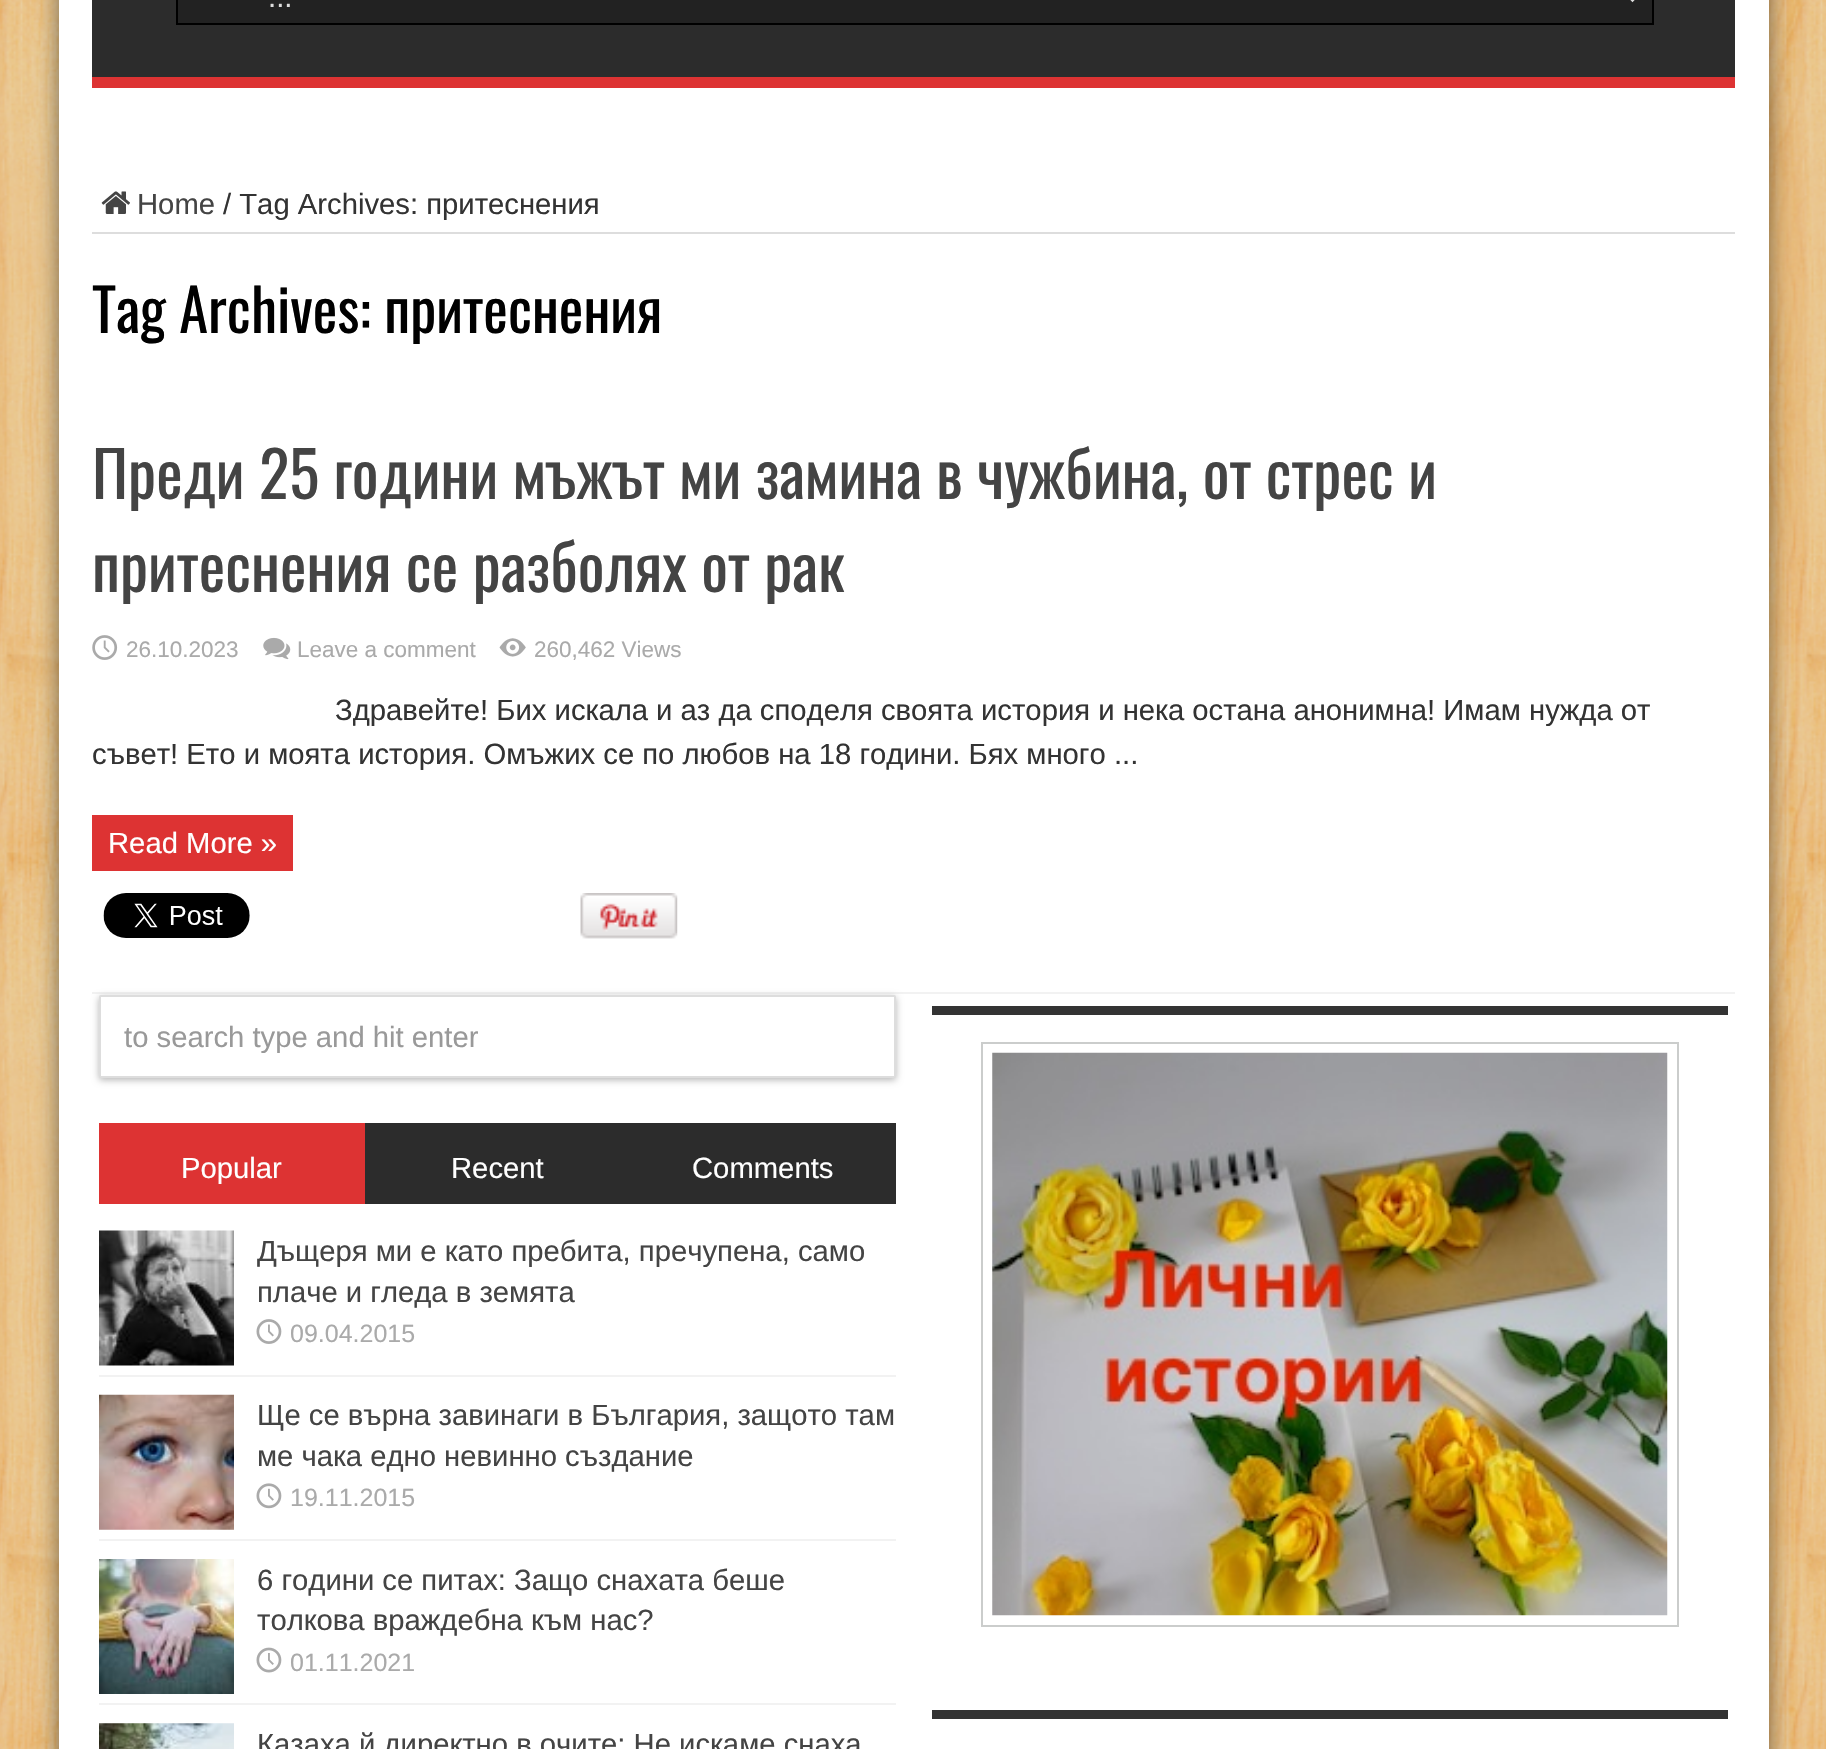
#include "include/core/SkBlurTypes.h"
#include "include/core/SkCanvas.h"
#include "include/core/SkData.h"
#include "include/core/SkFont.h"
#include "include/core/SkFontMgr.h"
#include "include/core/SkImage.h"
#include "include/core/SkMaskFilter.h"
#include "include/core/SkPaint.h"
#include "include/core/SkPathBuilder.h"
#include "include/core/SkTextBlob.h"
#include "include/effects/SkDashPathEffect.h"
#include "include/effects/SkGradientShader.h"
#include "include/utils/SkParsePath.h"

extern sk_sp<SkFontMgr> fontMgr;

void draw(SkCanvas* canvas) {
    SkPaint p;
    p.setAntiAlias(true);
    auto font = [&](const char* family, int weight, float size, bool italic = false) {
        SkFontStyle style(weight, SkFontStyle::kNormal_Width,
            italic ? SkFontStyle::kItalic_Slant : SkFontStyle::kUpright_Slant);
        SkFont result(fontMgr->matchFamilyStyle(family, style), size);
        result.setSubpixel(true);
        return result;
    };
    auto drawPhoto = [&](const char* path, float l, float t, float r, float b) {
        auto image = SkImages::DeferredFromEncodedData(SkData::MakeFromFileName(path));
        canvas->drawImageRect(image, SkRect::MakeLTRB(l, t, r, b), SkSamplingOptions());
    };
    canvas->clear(0xFFFFFFFF);
    drawPhoto("media/1.png", 0, 0, 1826, 1749);
    p.setColor(0x80000000);
    p.setMaskFilter(SkMaskFilter::MakeBlur(kNormal_SkBlurStyle, 11));
    canvas->drawRect(SkRect::MakeLTRB(59, -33, 1769, 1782), p);
    p.setMaskFilter(nullptr);
    {
        const struct { float l, t, r, b; SkColor color; } items[] = {
            {59, 0, 1769, 1749, 0xFFFFFFFF},
            {92, 0, 1735, 77, 0xFF2C2C2C},
            {92, 77, 1735, 88, 0xFFDD3333},
        };
        for (auto [l, t, r, b, color] : items) {
            p.setColor(color);
            canvas->drawRect(SkRect::MakeLTRB(l, t, r, b), p);
        }
    }
    p.setColor(0xFF222222);
    canvas->drawRect(SkRect::MakeLTRB(177, -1, 1653, 24), p);
    p.setStyle(SkPaint::kStroke_Style);
    p.setStrokeWidth(2);
    p.setColor(0xFF000000);
    canvas->drawRect(SkRect::MakeLTRB(177, -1, 1653, 24), p);
    p.setStrokeWidth(4.5f);
    p.setColor(0xFFDDDDDD);
    canvas->drawPath(SkPathBuilder().moveTo(1623.5f, -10).lineTo(1632.5f, -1).lineTo(1641.5f, -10).detach(), p);
    auto font1 = font("Liberation Sans", 400, 29.25f);
    p.setStyle(SkPaint::kFill_Style);
    canvas->drawString("...", 268, 7, font1, p);
    canvas->drawRect(SkRect::MakeLTRB(92, 232, 1735, 234), p);
    drawPhoto("media/2.png", 101, 191, 130, 214);
    p.setColor(0xFF444444);
    canvas->drawString("Home", 137, 214, font1, p);
    p.setColor(0xFF333333);
    canvas->drawString("/ Tag Archives: притеснения", 223, 214, font1, p);
    auto font2 = font("Oswald", 400, 58.5f);
    p.setColor(0xFF000000);
    canvas->drawString("Tag Archives: притеснения", 92, 333, font2, p);
    p.setColor(0xFFF2F2F2);
    canvas->drawRect(SkRect::MakeLTRB(92, 992, 1735, 994), p);
    auto font3 = font("Oswald", 400, 63);
    p.setColor(0xFF444444);
    canvas->drawString("Преди 25 години мъжът ми замина в чужбина, от стрес и", 92, 499, font3, p);
    canvas->drawString("притеснения се разболях от рак", 92, 592, font3, p);
    drawPhoto("media/3.png", 92, 635, 118, 660);
    auto font4 = font("Liberation Sans", 400, 22.5f);
    p.setColor(0xFFAAAAAA);
    canvas->drawString("26.10.2023", 126, 657, font4, p);
    drawPhoto("media/4.png", 263, 637, 291, 660);
    canvas->drawString("Leave a comment", 297, 657, font4, p);
    drawPhoto("media/5.png", 499, 638, 526, 657);
    canvas->drawString("260,462 Views", 534, 657, font4, p);
    p.setColor(0xFF333333);
    canvas->drawString("Здравейте! Бих искала и аз да споделя своята история и нека остана анонимна! Имам нужда от", 335, 720, font1, p);
    canvas->drawString("съвет! Ето и моята история. Омъжих се по любов на 18 години. Бях много ...", 92, 764, font1, p);
    p.setColor(0xFFDD3333);
    canvas->drawRect(SkRect::MakeLTRB(92, 815, 293, 871), p);
    p.setColor(0xFFFFFFFF);
    canvas->drawString("Read More »", 108, 853, font1, p);
    drawPhoto("media/6.png", 103, 893, 250, 938);
    drawPhoto("media/7.png", 580, 893, 678, 939);
    p.setColor(0xFFB5B5B5);
    p.setMaskFilter(SkMaskFilter::MakeBlur(kNormal_SkBlurStyle, 3.5f));
    canvas->drawRoundRect(SkRect::MakeLTRB(99, 997, 896, 1080), 2, 2, p);
    p.setMaskFilter(nullptr);
    p.setColor(0xFFFFFFFF);
    canvas->drawRoundRect(SkRect::MakeLTRB(100, 996, 895, 1077), 1, 1, p);
    p.setStyle(SkPaint::kStroke_Style);
    p.setStrokeWidth(2);
    p.setColor(0xFFDDDDDD);
    canvas->drawRoundRect(SkRect::MakeLTRB(100, 996, 895, 1077), 1, 1, p);
    p.setStyle(SkPaint::kFill_Style);
    p.setColor(0xFF999999);
    canvas->drawString("to search type and hit enter", 124, 1047, font1, p);
    p.setColor(0xFF333333);
    canvas->drawRect(SkRect::MakeLTRB(932, 1006, 1728, 1015), p);
    p.setStyle(SkPaint::kStroke_Style);
    p.setColor(0xFFCBCDCC);
    canvas->drawRect(SkRect::MakeLTRB(982, 1043, 1678, 1626), p);
    drawPhoto("media/8.png", 992, 1052, 1668, 1616);
    p.setStyle(SkPaint::kFill_Style);
    p.setColor(0xFFDD3333);
    canvas->drawRect(SkRect::MakeLTRB(99, 1123, 365, 1204), p);
    p.setColor(0xFFFFFFFF);
    canvas->drawString("Popular", 181, 1178, font1, p);
    p.setColor(0xFF2C2C2C);
    canvas->drawRect(SkRect::MakeLTRB(365, 1123, 896, 1204), p);
    p.setColor(0xFFFFFFFF);
    canvas->drawString("Recent", 451, 1178, font1, p);
    canvas->drawString("Comments", 692, 1178, font1, p);
    p.setColor(0xFFF2F2F2);
    canvas->drawRect(SkRect::MakeLTRB(99, 1375, 896, 1377), p);
    drawPhoto("media/9.png", 99, 1230, 234, 1366);
    p.setColor(0xFF444444);
    canvas->drawString("Дъщеря ми е като пребита, пречупена, само", 257, 1261, font1, p);
    canvas->drawString("плаче и гледа в земята", 257, 1302, font1, p);
    drawPhoto("media/10.png", 256, 1319, 282, 1344);
    auto font5 = font("Liberation Sans", 400, 25);
    p.setColor(0xFFAAAAAA);
    canvas->drawString("09.04.2015", 290, 1342, font5, p);
    p.setColor(0xFFF2F2F2);
    canvas->drawRect(SkRect::MakeLTRB(99, 1539, 896, 1541), p);
    drawPhoto("media/11.png", 99, 1394, 234, 1530);
    p.setColor(0xFF444444);
    canvas->drawString("Ще се върна завинаги в България, защото там", 257, 1425, font1, p);
    canvas->drawString("ме чака едно невинно създание", 257, 1466, font1, p);
    drawPhoto("media/12.png", 256, 1483, 282, 1509);
    p.setColor(0xFFAAAAAA);
    canvas->drawString("19.11.2015", 290, 1506, font5, p);
    p.setColor(0xFFF2F2F2);
    canvas->drawRect(SkRect::MakeLTRB(99, 1703, 896, 1705), p);
    drawPhoto("media/13.png", 99, 1559, 234, 1694);
    p.setColor(0xFF444444);
    canvas->drawString("6 години се питах: Защо снахата беше", 257, 1590, font1, p);
    canvas->drawString("толкова враждебна към нас?", 257, 1630, font1, p);
    drawPhoto("media/14.png", 256, 1647, 282, 1673);
    p.setColor(0xFFAAAAAA);
    canvas->drawString("01.11.2021", 290, 1671, font5, p);
    drawPhoto("media/15.png", 99, 1723, 234, 1749);
    p.setColor(0xFF444444);
    canvas->drawString("Казаха й директно в очите: Не искаме снаха", 257, 1754, font1, p);
    p.setColor(0xFF333333);
    canvas->drawRect(SkRect::MakeLTRB(932, 1710, 1728, 1719), p);
}
